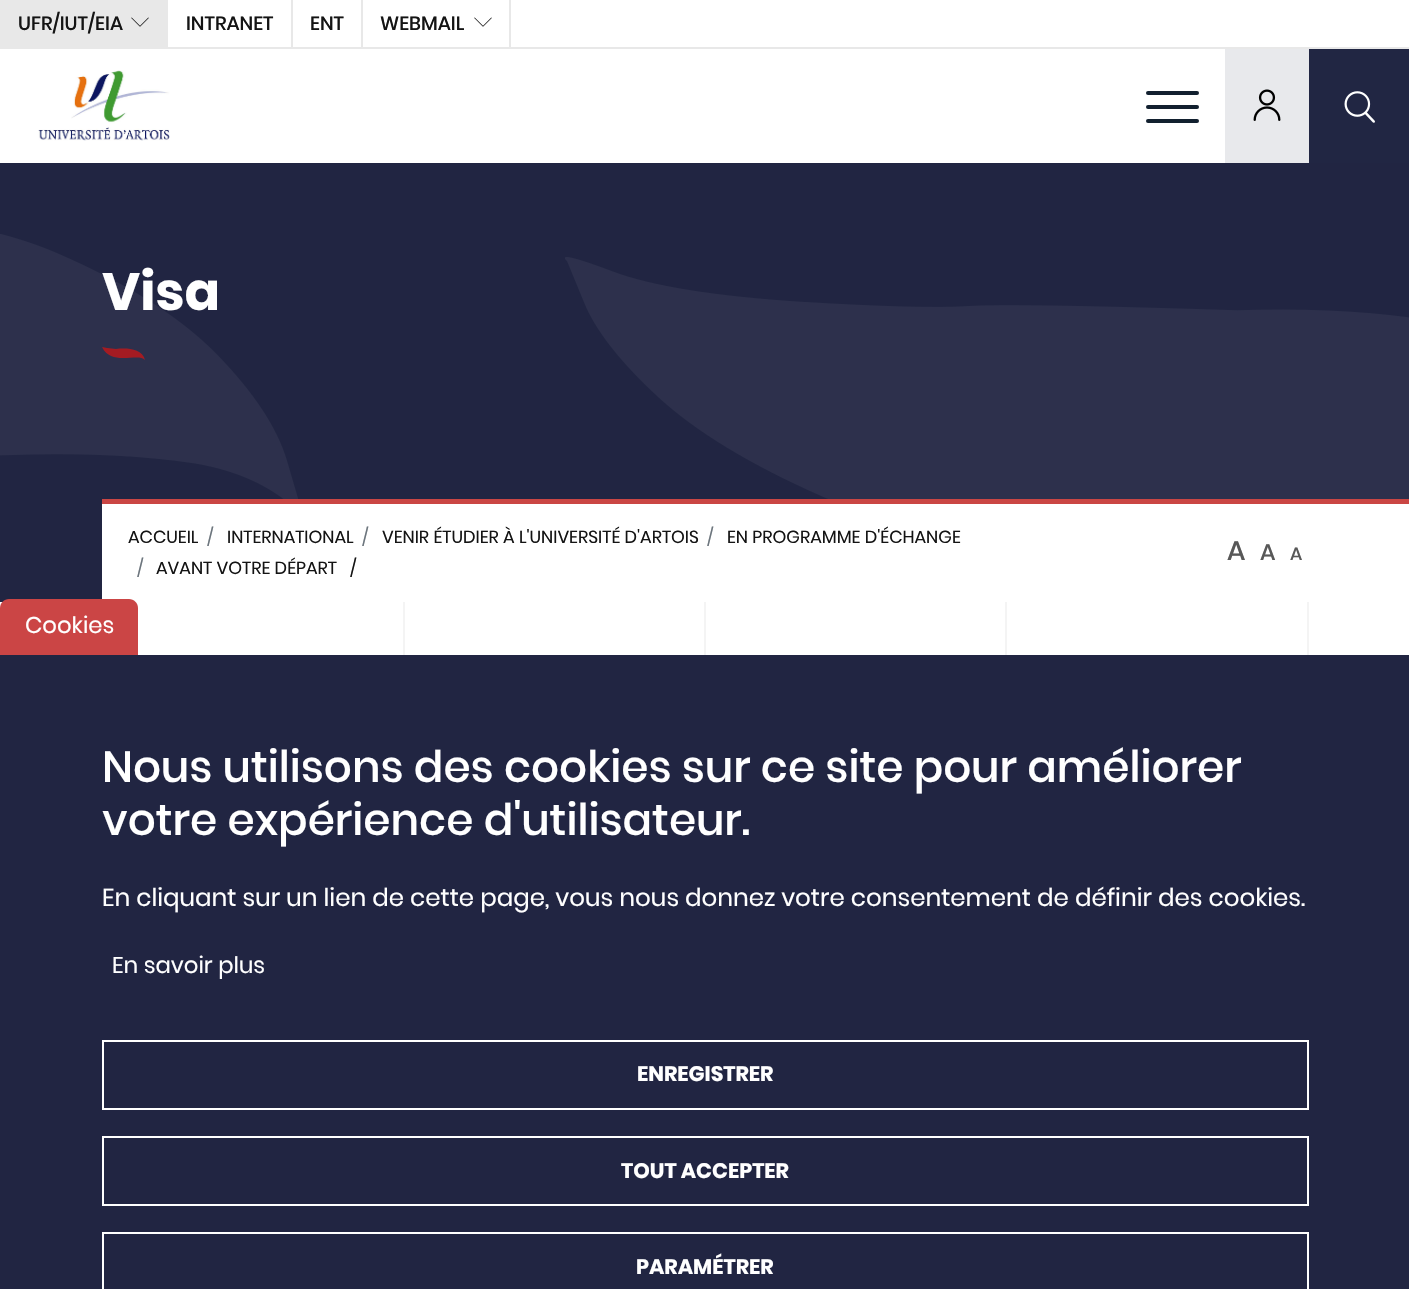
#include "include/core/SkBlurTypes.h"
#include "include/core/SkCanvas.h"
#include "include/core/SkData.h"
#include "include/core/SkFont.h"
#include "include/core/SkFontMgr.h"
#include "include/core/SkImage.h"
#include "include/core/SkMaskFilter.h"
#include "include/core/SkPaint.h"
#include "include/core/SkPathBuilder.h"
#include "include/core/SkTextBlob.h"
#include "include/effects/SkDashPathEffect.h"
#include "include/effects/SkGradientShader.h"
#include "include/utils/SkParsePath.h"

extern sk_sp<SkFontMgr> fontMgr;

void draw(SkCanvas* canvas) {
    SkPaint p;
    p.setAntiAlias(true);
    auto font = [&](const char* family, int weight, float size, bool italic = false) {
        SkFontStyle style(weight, SkFontStyle::kNormal_Width,
            italic ? SkFontStyle::kItalic_Slant : SkFontStyle::kUpright_Slant);
        SkFont result(fontMgr->matchFamilyStyle(family, style), size);
        result.setSubpixel(true);
        return result;
    };
    auto drawPhoto = [&](const char* path, float l, float t, float r, float b) {
        auto image = SkImages::DeferredFromEncodedData(SkData::MakeFromFileName(path));
        canvas->drawImageRect(image, SkRect::MakeLTRB(l, t, r, b), SkSamplingOptions());
    };
    canvas->clear(0xFFFFFFFF);
    p.setColor(0xFFE8E8E8);
    canvas->drawRect(SkRect::MakeLTRB(0, 47, 1409, 49), p);
    canvas->drawRect(SkRect::MakeLTRB(0, 0, 168, 47), p);
    auto font1 = font("Poppins", 500, 19.25f);
    p.setColor(0xFF141414);
    canvas->drawString("UFR/IUT/EIA", 18, 30, font1, p);
    drawPhoto("media/1.png", 131, 17, 149, 27);
    p.setColor(0xFFE8E8E8);
    canvas->drawRect(SkRect::MakeLTRB(291, 0, 293, 47), p);
    p.setColor(0xFF141414);
    canvas->drawString("INTRANET", 186, 30, font1, p);
    p.setColor(0xFFE8E8E8);
    canvas->drawRect(SkRect::MakeLTRB(361, 0, 363, 47), p);
    p.setColor(0xFF141414);
    canvas->drawString("ENT", 310, 30, font1, p);
    p.setColor(0xFFE8E8E8);
    canvas->drawRect(SkRect::MakeLTRB(509, 0, 511, 47), p);
    p.setColor(0xFF141414);
    canvas->drawString("WEBMAIL", 380, 30, font1, p);
    drawPhoto("media/2.png", 474, 17, 492, 27);
    drawPhoto("media/3.png", 38, 70, 170, 141);
    p.setColor(0xFF12202F);
    canvas->drawRoundRect(SkRect::MakeLTRB(1146, 91, 1199, 95), 2, 2, p);
    canvas->drawRoundRect(SkRect::MakeLTRB(1146, 105, 1199, 109), 2, 2, p);
    canvas->drawRoundRect(SkRect::MakeLTRB(1146, 119, 1199, 123), 2, 2, p);
    p.setColor(0xFFE8E9EC);
    canvas->drawRect(SkRect::MakeLTRB(1225, 49, 1309, 163), p);
    drawPhoto("media/4.png", 1253, 89, 1281, 121);
    p.setColor(0xFF212643);
    canvas->drawRect(SkRect::MakeLTRB(1309, 49, 1409, 163), p);
    drawPhoto("media/5.png", 1344, 91, 1375, 123);
    p.setColor(0xFF212542);
    canvas->drawRect(SkRect::MakeLTRB(0, 163, 1409, 602), p);
    drawPhoto("media/6.png", 0, 234, 298, 499);
    drawPhoto("media/7.png", 565, 257, 1409, 499);
    auto font2 = font("Poppins", 700, 52.5f);
    p.setColor(0xFFFFFFFF);
    canvas->drawString("Visa", 102, 310, font2, p);
    p.setColor(0xFFA41B22);
    canvas->drawPath(SkPathBuilder().moveTo(145, 360).cubicTo(142, 348, 126, 348, 116, 349).lineTo(107, 348).lineTo(102, 347).cubicTo(112, 367, 138, 352, 145, 360).close().detach(), p);
    p.setColor(0xFFFFFFFF);
    canvas->drawRect(SkRect::MakeLTRB(102, 504, 1409, 602), p);
    p.setColor(0xFFCA4644);
    canvas->drawRect(SkRect::MakeLTRB(102, 499, 1409, 504), p);
    auto font3 = font("Poppins", 400, 17.5f);
    p.setColor(0xFF141414);
    canvas->drawString("ACCUEIL", 128, 543, font3, p);
    p.setColor(0xFF6C757D);
    canvas->drawString("/", 207, 543, font3, p);
    p.setColor(0xFF141414);
    canvas->drawString("INTERNATIONAL", 227, 543, font3, p);
    p.setColor(0xFF6C757D);
    canvas->drawString("/", 362, 543, font3, p);
    p.setColor(0xFF141414);
    canvas->drawString("VENIR ÉTUDIER À L'UNIVERSITÉ D'ARTOIS", 382, 543, font3, p);
    p.setColor(0xFF6C757D);
    canvas->drawString("/", 707, 543, font3, p);
    p.setColor(0xFF141414);
    canvas->drawString("EN PROGRAMME D'ÉCHANGE", 727, 543, font3, p);
    p.setColor(0xFF6C757D);
    canvas->drawString("/", 137, 574, font3, p);
    p.setColor(0xFF141414);
    canvas->drawString("AVANT VOTRE DÉPART", 156, 574, font3, p);
    canvas->drawString("/", 350, 574, font3, p);
    auto font4 = font("Poppins", 500, 27);
    p.setColor(0xFF585858);
    canvas->drawString("A", 1227, 560, font4, p);
    auto font5 = font("Poppins", 500, 22.75f);
    canvas->drawString("A", 1260, 560, font5, p);
    auto font6 = font("Poppins", 500, 18);
    canvas->drawString("A", 1290, 560, font6, p);
    {
        const struct { float l, t, r, b; SkColor color; } items[] = {
            {704, 602, 706, 655, 0xFFF4F4F4},
            {403, 602, 405, 655, 0xFFF4F4F4},
            {1307, 602, 1309, 655, 0xFFF4F4F4},
            {1005, 602, 1007, 655, 0xFFF4F4F4},
        };
        for (auto [l, t, r, b, color] : items) {
            p.setColor(color);
            canvas->drawRect(SkRect::MakeLTRB(l, t, r, b), p);
        }
    }
    p.setColor(0xFFCB4545);
    canvas->drawPath(SkPathBuilder().moveTo(9, 599).lineTo(129, 599).cubicTo(134, 599, 138, 603, 138, 608).lineTo(138, 655).lineTo(0, 655).lineTo(0, 608).cubicTo(0, 603, 4, 599, 9, 599).close().detach(), p);
    auto font7 = font("Poppins", 400, 22.75f);
    p.setColor(0xFFFFFFFF);
    canvas->drawString("Cookies", 25, 633, font7, p);
    p.setColor(0xFF212542);
    canvas->drawRect(SkRect::MakeLTRB(0, 655, 1409, 1289), p);
    auto font8 = font("Poppins", 500, 43.75f);
    p.setColor(0xFFFFFFFF);
    canvas->drawString("Nous utilisons des cookies sur ce site pour améliorer", 102, 782, font8, p);
    canvas->drawString("votre expérience d'utilisateur.", 102, 835, font8, p);
    auto font9 = font("Poppins", 400, 24.5f);
    canvas->drawString("En cliquant sur un lien de cette page, vous nous donnez votre consentement de définir des cookies.", 102, 906, font9, p);
    canvas->drawString("En savoir plus", 112, 973, font7, p);
    p.setStyle(SkPaint::kStroke_Style);
    p.setStrokeWidth(2);
    canvas->drawRect(SkRect::MakeLTRB(103, 1041, 1308, 1109), p);
    auto font10 = font("Poppins", 700, 21);
    p.setStyle(SkPaint::kFill_Style);
    canvas->drawString("ENREGISTRER", 637, 1081, font10, p);
    p.setStyle(SkPaint::kStroke_Style);
    canvas->drawRect(SkRect::MakeLTRB(103, 1137, 1308, 1205), p);
    p.setStyle(SkPaint::kFill_Style);
    canvas->drawString("TOUT ACCEPTER", 621, 1178, font10, p);
    p.setStyle(SkPaint::kStroke_Style);
    canvas->drawRect(SkRect::MakeLTRB(103, 1233, 1308, 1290), p);
    p.setStyle(SkPaint::kFill_Style);
    canvas->drawString("PARAMÉTRER", 636, 1274, font10, p);
}
